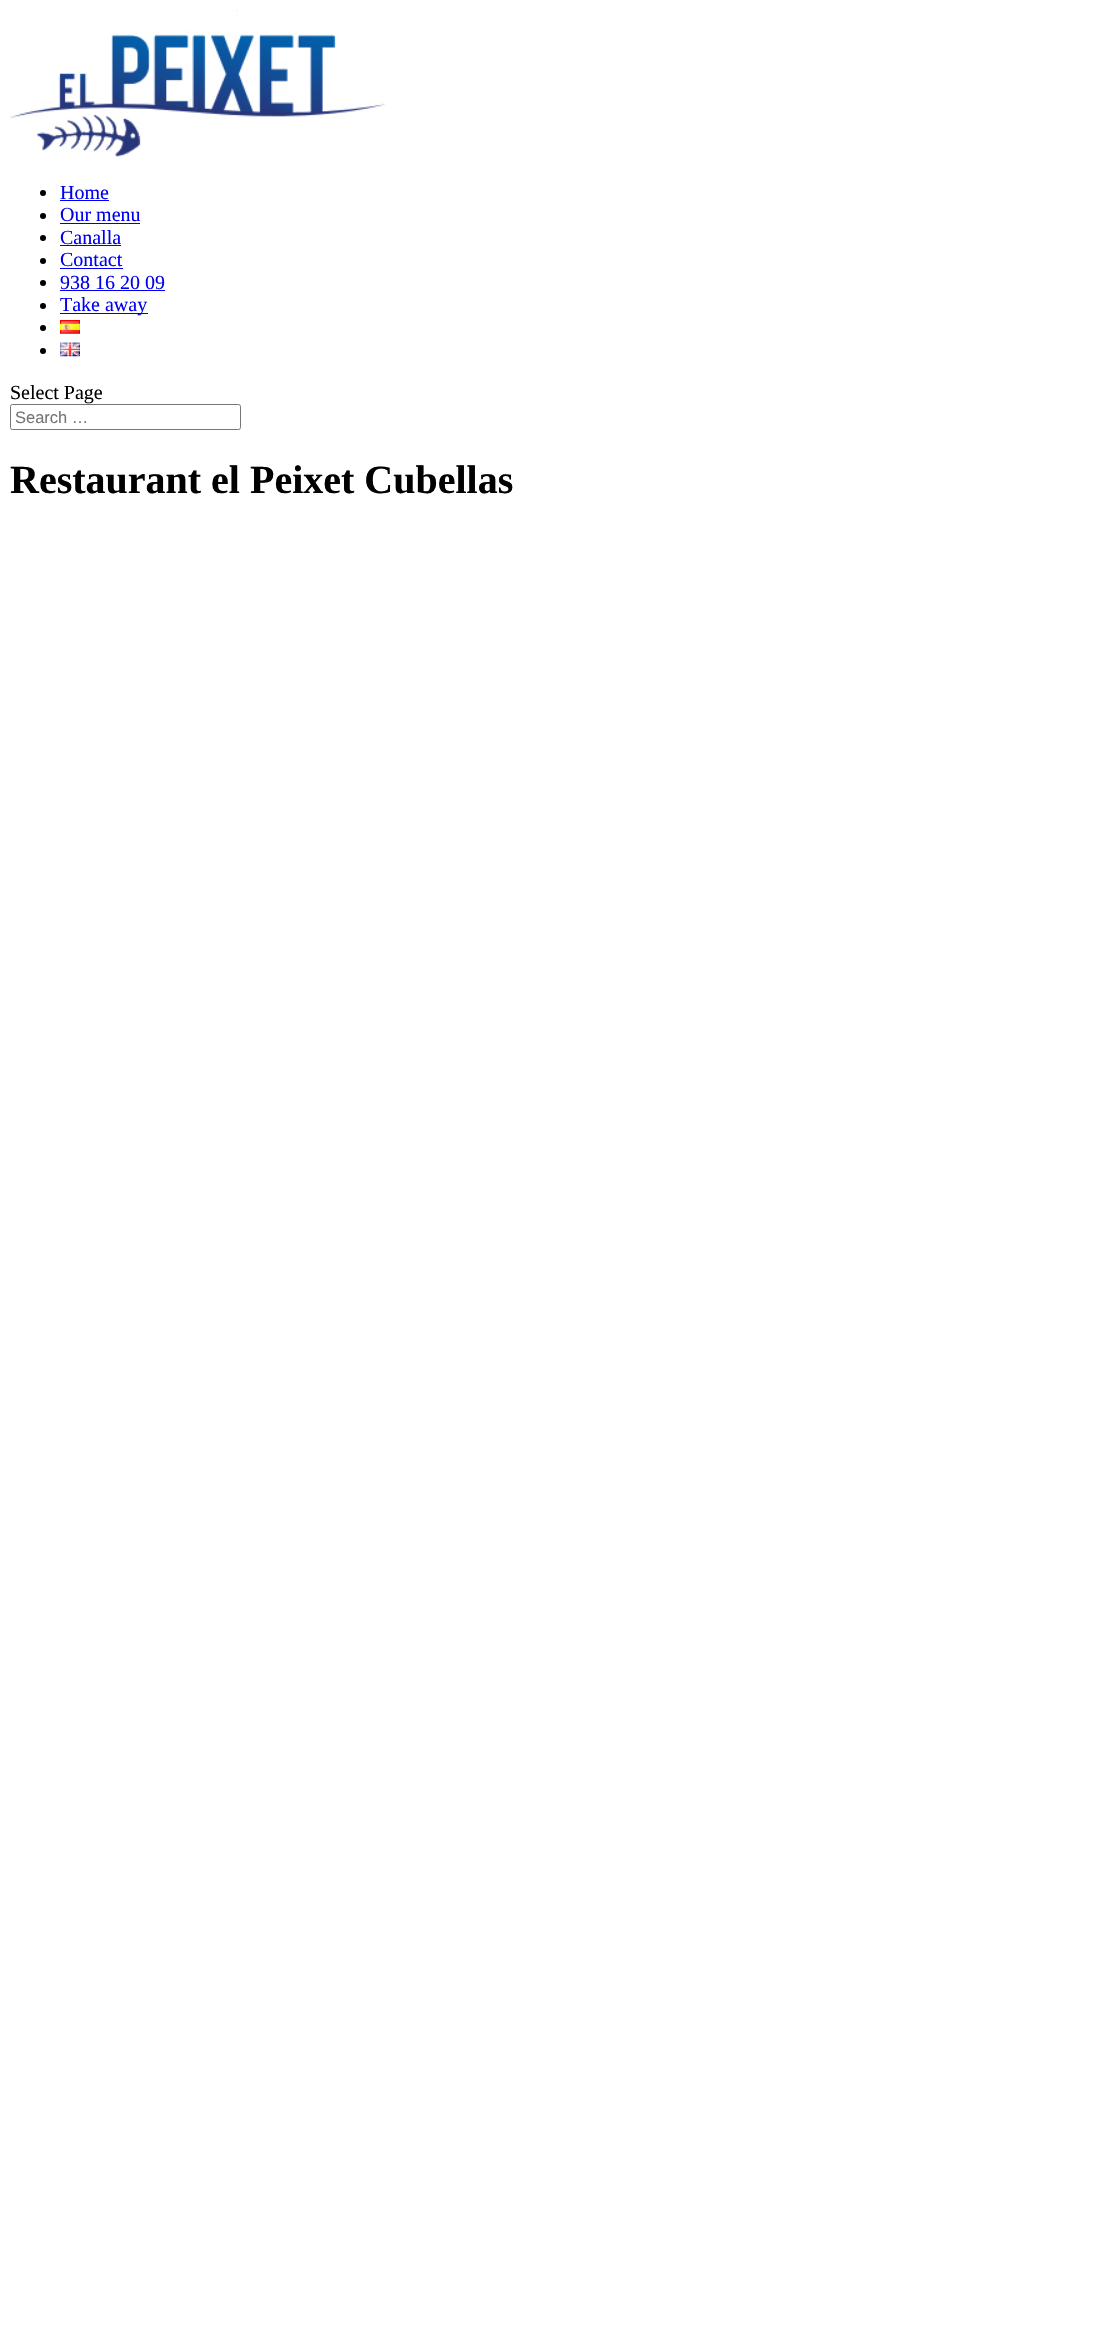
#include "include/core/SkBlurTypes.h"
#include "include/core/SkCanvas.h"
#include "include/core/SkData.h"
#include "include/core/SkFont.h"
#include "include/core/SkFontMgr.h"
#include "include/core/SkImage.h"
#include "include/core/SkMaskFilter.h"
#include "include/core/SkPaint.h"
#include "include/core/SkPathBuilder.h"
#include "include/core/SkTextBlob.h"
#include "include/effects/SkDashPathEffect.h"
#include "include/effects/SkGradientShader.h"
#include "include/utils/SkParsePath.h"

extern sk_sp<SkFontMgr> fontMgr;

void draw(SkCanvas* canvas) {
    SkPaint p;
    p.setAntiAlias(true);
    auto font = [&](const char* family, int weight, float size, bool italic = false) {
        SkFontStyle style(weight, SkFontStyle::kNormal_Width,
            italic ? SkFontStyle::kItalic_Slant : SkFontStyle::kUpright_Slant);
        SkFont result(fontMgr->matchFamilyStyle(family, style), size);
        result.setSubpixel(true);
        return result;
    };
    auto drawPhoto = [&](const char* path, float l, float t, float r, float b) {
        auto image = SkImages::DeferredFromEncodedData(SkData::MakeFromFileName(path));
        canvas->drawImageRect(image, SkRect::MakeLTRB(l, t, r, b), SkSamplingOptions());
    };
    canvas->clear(0xFFFFFFFF);
    drawPhoto("media/1.png", 10, 10, 385, 157);
    p.setColor(0xFF000000);
    canvas->drawCircle(43, 193, 3, p);
    auto font1 = font("Liberation Serif", 400, 20);
    p.setColor(0xFF0000EE);
    canvas->drawString("Home", 60, 199, font1, p);
    canvas->drawRect(SkRect::MakeLTRB(60, 200, 109, 201), p);
    p.setColor(0xFF000000);
    canvas->drawCircle(43, 216, 3, p);
    p.setColor(0xFF0000EE);
    canvas->drawString("Our menu", 60, 221, font1, p);
    canvas->drawRect(SkRect::MakeLTRB(60, 223, 140, 224), p);
    p.setColor(0xFF000000);
    canvas->drawCircle(43, 238, 3, p);
    p.setColor(0xFF0000EE);
    canvas->drawString("Canalla", 60, 244, font1, p);
    canvas->drawRect(SkRect::MakeLTRB(60, 245, 121, 246), p);
    p.setColor(0xFF000000);
    canvas->drawCircle(43, 261, 3, p);
    p.setColor(0xFF0000EE);
    canvas->drawString("Contact", 60, 266, font1, p);
    canvas->drawRect(SkRect::MakeLTRB(60, 268, 123, 269), p);
    p.setColor(0xFF000000);
    canvas->drawCircle(43, 283, 3, p);
    p.setColor(0xFF0000EE);
    canvas->drawString("938 16 20 09", 60, 289, font1, p);
    canvas->drawRect(SkRect::MakeLTRB(60, 290, 165, 291), p);
    p.setColor(0xFF000000);
    canvas->drawCircle(43, 306, 3, p);
    p.setColor(0xFF0000EE);
    canvas->drawRect(SkRect::MakeLTRB(60, 313, 148, 314), p);
    canvas->drawString("Take away", 60, 311, font1, p);
    p.setColor(0xFF000000);
    canvas->drawCircle(43, 328, 3, p);
    drawPhoto("media/2.png", 60, 320, 80, 334);
    canvas->drawCircle(43, 351, 3, p);
    drawPhoto("media/3.png", 60, 342, 80, 357);
    canvas->drawString("Select Page", 10, 399, font1, p);
    p.setStyle(SkPaint::kStroke_Style);
    p.setStrokeWidth(1);
    p.setColor(0xFF767676);
    canvas->drawRoundRect(SkRect::MakeLTRB(10.5f, 404.5f, 240.5f, 429.5f), 2, 2, p);
    auto font2 = font("Liberation Sans", 400, 16.5f);
    p.setStyle(SkPaint::kFill_Style);
    p.setColor(0xFF757575);
    canvas->drawString("Search …", 15, 423, font2, p);
    auto font3 = font("Liberation Serif", 700, 40);
    p.setColor(0xFF000000);
    canvas->drawString("Restaurant el Peixet Cubellas", 10, 493, font3, p);
}
